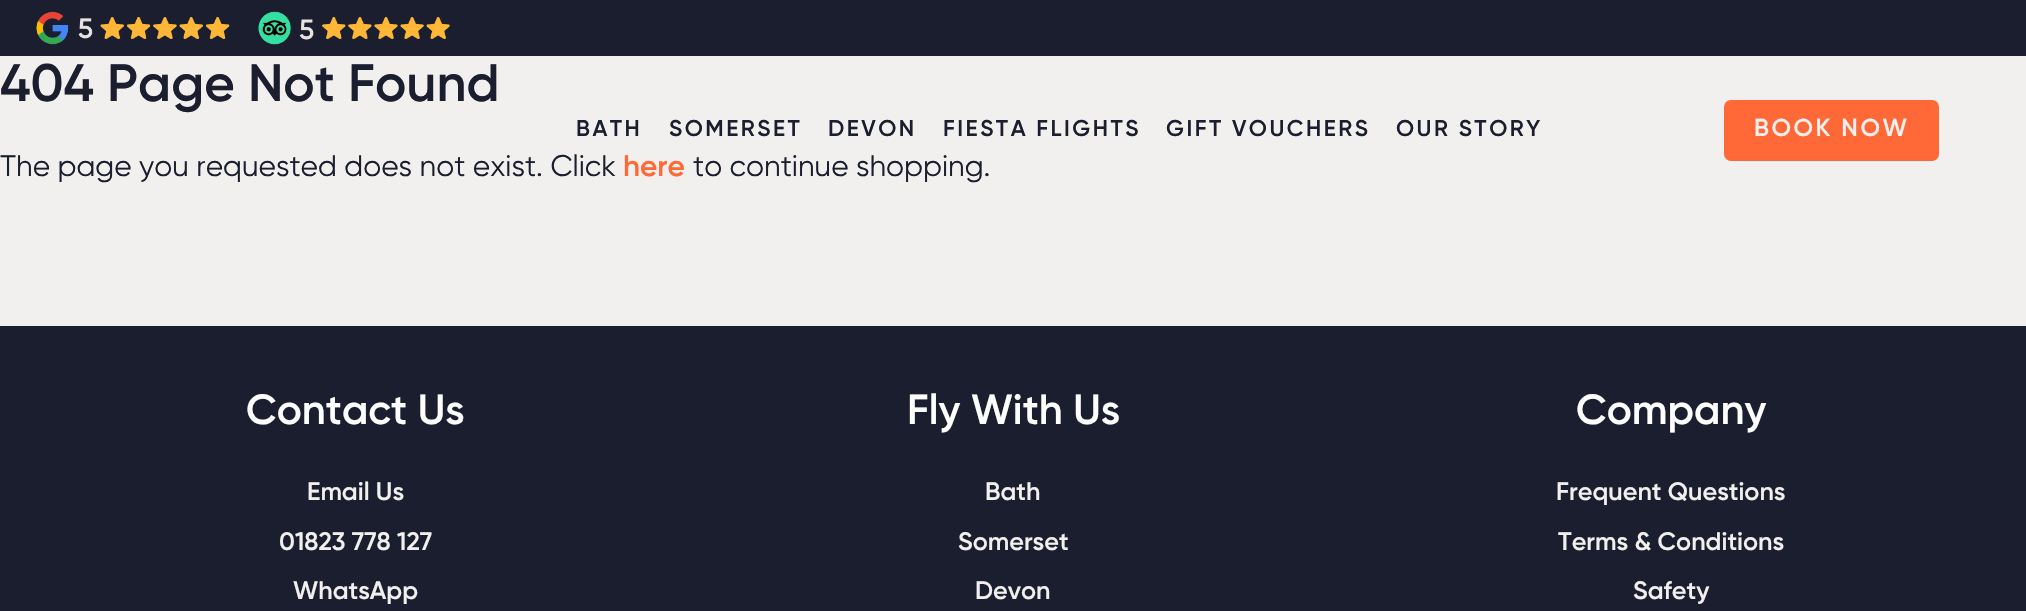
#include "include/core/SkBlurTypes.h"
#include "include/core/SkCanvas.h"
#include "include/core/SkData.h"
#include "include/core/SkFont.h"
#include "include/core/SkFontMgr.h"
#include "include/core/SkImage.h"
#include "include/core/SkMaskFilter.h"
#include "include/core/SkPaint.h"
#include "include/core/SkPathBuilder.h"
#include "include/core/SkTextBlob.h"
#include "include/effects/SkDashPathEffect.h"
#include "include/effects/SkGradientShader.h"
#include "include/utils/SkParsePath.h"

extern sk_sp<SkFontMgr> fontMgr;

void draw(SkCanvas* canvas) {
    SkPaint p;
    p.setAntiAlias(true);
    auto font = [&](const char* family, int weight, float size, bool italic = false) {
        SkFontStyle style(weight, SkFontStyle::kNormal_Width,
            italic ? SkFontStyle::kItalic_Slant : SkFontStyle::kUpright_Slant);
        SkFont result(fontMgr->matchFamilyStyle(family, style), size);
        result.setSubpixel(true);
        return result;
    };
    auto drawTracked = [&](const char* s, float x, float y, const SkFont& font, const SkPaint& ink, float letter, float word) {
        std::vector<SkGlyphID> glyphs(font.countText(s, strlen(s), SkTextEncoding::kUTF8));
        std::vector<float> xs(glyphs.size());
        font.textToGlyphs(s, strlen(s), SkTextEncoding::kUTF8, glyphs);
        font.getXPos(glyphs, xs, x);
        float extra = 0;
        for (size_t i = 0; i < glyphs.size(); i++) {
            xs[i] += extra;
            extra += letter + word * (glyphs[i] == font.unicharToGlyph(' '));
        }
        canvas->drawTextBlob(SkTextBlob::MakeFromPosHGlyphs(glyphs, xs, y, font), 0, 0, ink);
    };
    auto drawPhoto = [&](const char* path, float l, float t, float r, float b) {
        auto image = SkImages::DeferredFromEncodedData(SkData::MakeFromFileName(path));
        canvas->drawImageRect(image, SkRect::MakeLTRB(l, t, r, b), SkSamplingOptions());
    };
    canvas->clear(0xFFF2F0EE);
    auto font1 = font("Gilroy", 600, 52.5f);
    p.setColor(0xFF1B1E2F);
    canvas->drawString("404 Page Not Found", 0, 101, font1, p);
    auto font2 = font("Gilroy", 400, 29.75f);
    canvas->drawString("The page you requested does not exist. Click", 0, 176, font2, p);
    auto font3 = font("Gilroy", 600, 29.75f);
    p.setColor(0xFFFF6937);
    canvas->drawString("here", 623, 176, font3, p);
    p.setColor(0xFF1B1E2F);
    canvas->drawString("to continue shopping.", 693, 176, font2, p);
    canvas->drawRect(SkRect::MakeLTRB(0, 0, 2026, 56), p);
    drawPhoto("media/1.png", 36, 11, 230, 45);
    drawPhoto("media/2.png", 258, 11, 450, 45);
    auto font4 = font("Gilroy", 600, 22.75f);
    {
        const struct { const char* s; float x, y; } items[] = {
            {"BATH", 576, 136},
            {"SOMERSET", 669, 136},
            {"DEVON", 828, 136},
            {"FIESTA FLIGHTS", 943, 136},
            {"GIFT VOUCHERS", 1166, 136},
            {"OUR STORY", 1396, 136},
        };
        for (auto [s, x, y] : items) {
            drawTracked(s, x, y, font4, p, 2.5f, 0);
        }
    }
    p.setColor(0xFFFF6937);
    canvas->drawRoundRect(SkRect::MakeLTRB(1724, 100, 1939, 161), 7, 7, p);
    auto font5 = font("Gilroy", 600, 24.5f);
    p.setColor(0xFFF2F0EE);
    drawTracked("BOOK NOW", 1754, 136, font5, p, 2.5f, 0);
    p.setColor(0xFF1B1E2F);
    canvas->drawRect(SkRect::MakeLTRB(0, 326, 2026, 611), p);
    auto font6 = font("Gilroy", 600, 42);
    p.setColor(0xFFFFFFFF);
    canvas->drawString("Contact Us", 246, 424, font6, p);
    auto font7 = font("Gilroy", 600, 25.25f);
    p.setColor(0xFFF2F0EE);
    {
        const struct { const char* s; float x, y; } items[] = {
            {"Email Us", 307, 500},
            {"01823 778 127", 279, 550},
            {"WhatsApp", 293, 599},
        };
        for (auto [s, x, y] : items) {
            canvas->drawString(s, x, y, font7, p);
        }
    }
    p.setColor(0xFFFFFFFF);
    canvas->drawString("Fly With Us", 907, 424, font6, p);
    p.setColor(0xFFF2F0EE);
    {
        const struct { const char* s; float x, y; } items[] = {
            {"Bath", 985, 500},
            {"Somerset", 958, 550},
            {"Devon", 975, 599},
        };
        for (auto [s, x, y] : items) {
            canvas->drawString(s, x, y, font7, p);
        }
    }
    p.setColor(0xFFFFFFFF);
    canvas->drawString("Company", 1576, 424, font6, p);
    p.setColor(0xFFF2F0EE);
    {
        const struct { const char* s; float x, y; } items[] = {
            {"Frequent Questions", 1556, 500},
            {"Terms & Conditions", 1558, 550},
            {"Safety", 1633, 599},
        };
        for (auto [s, x, y] : items) {
            canvas->drawString(s, x, y, font7, p);
        }
    }
}
